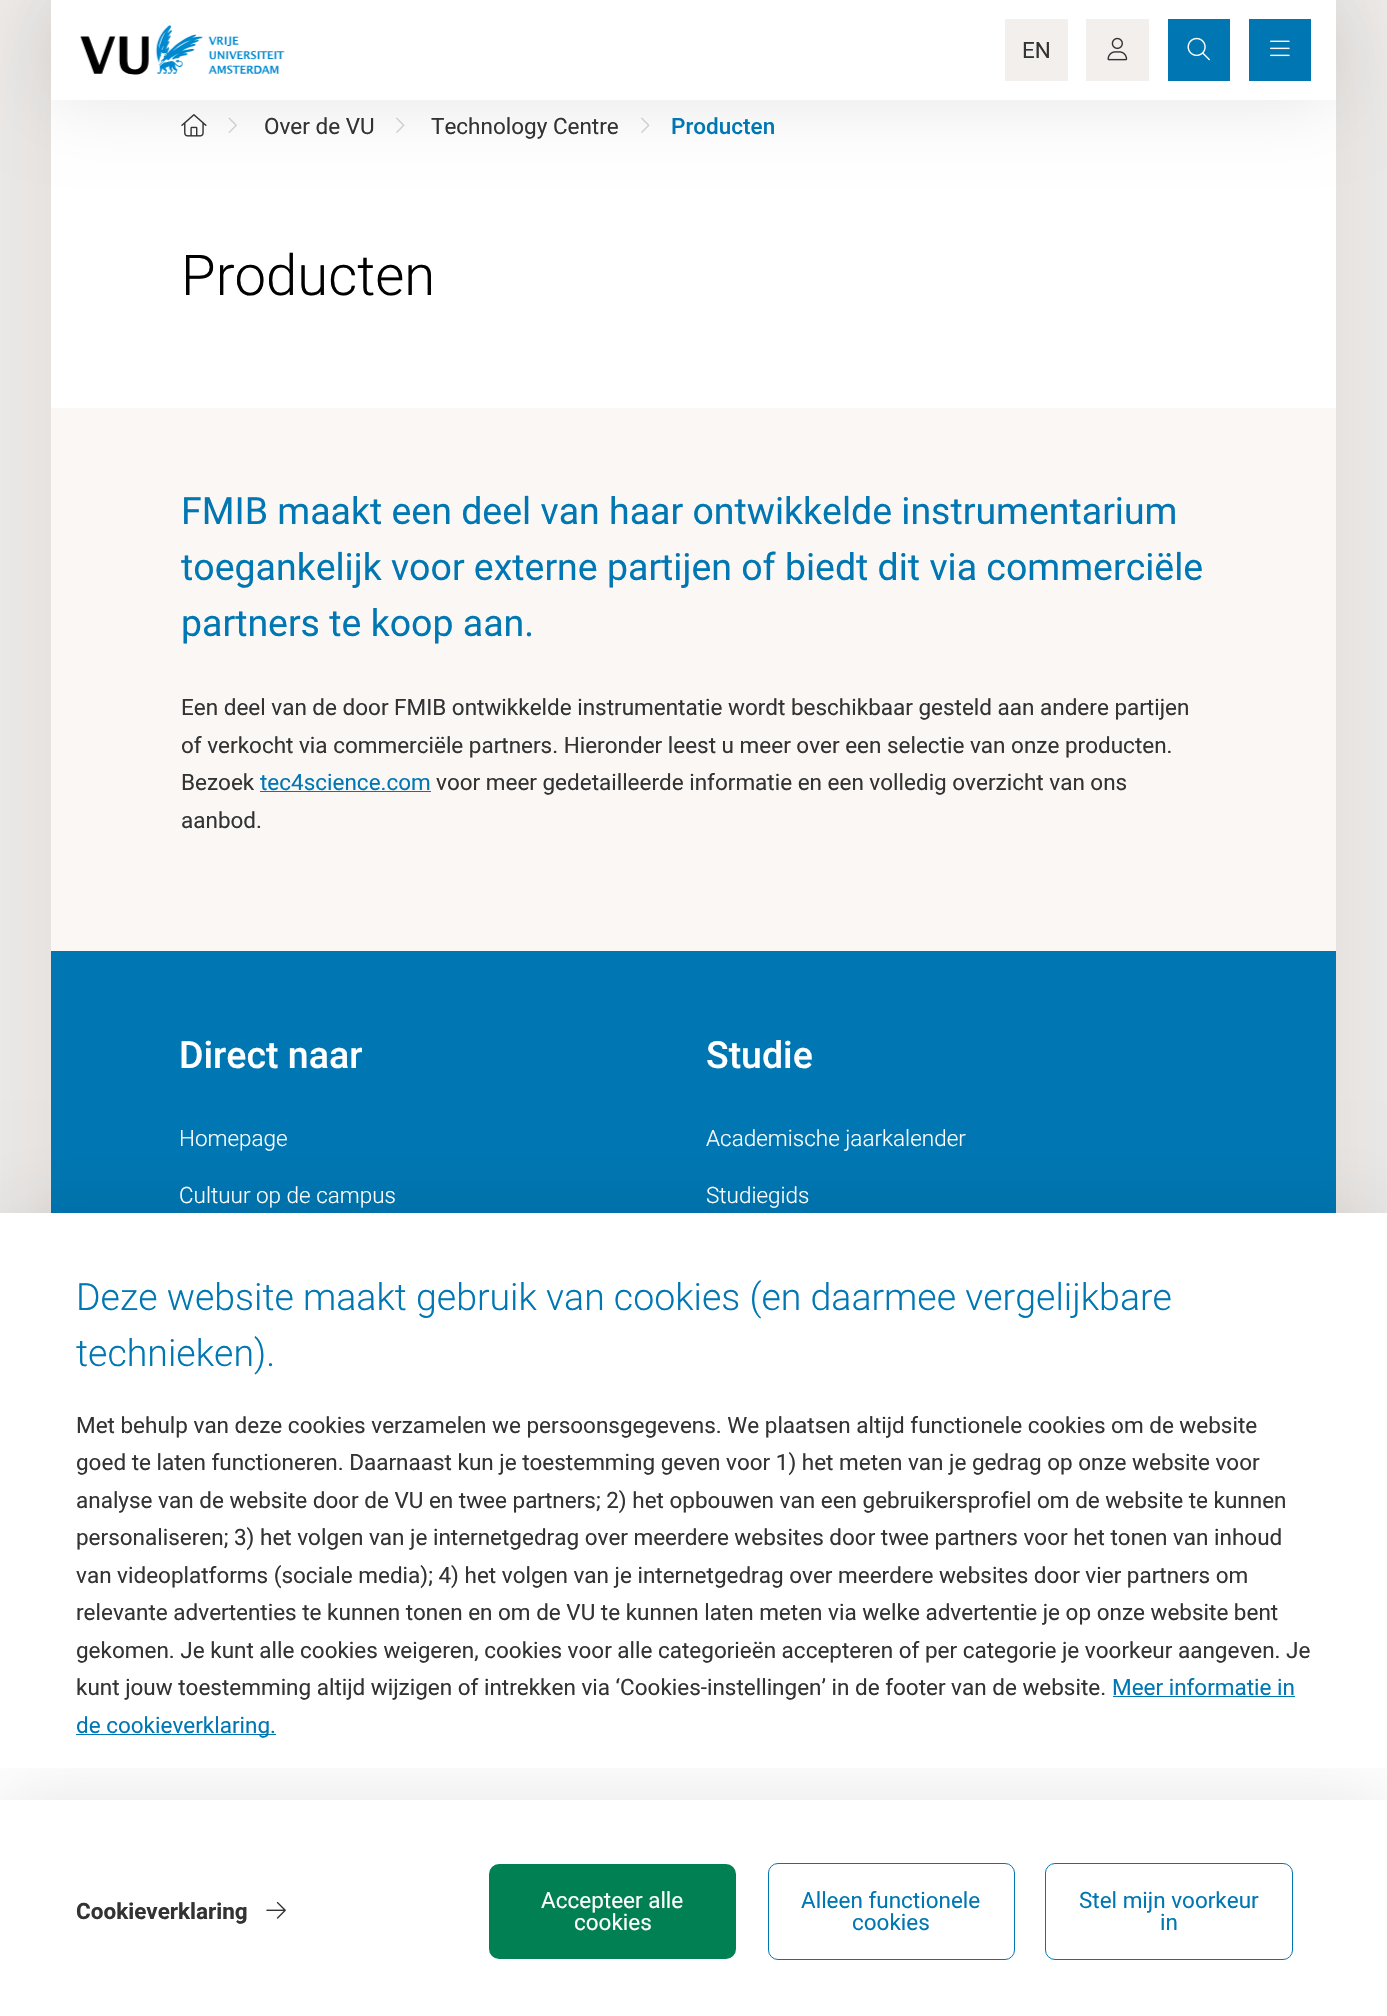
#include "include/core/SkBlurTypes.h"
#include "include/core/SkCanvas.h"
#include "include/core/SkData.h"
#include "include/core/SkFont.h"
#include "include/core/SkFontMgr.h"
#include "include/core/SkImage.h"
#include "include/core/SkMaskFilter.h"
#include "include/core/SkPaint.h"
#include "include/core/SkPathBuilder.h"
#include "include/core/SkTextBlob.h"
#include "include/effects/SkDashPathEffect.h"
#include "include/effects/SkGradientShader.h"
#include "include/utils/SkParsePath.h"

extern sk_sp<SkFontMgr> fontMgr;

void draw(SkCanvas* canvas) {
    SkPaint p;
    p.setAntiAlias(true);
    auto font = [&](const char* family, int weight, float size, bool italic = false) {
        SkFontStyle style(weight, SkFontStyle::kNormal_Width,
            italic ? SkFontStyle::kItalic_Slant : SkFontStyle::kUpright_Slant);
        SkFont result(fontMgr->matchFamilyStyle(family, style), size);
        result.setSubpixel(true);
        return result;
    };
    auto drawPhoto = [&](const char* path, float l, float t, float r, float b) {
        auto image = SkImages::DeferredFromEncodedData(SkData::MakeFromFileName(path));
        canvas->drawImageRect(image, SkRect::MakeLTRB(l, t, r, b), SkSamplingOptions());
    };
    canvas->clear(0xFFF2EFED);
    p.setColor(0x1A000000);
    p.setMaskFilter(SkMaskFilter::MakeBlur(kNormal_SkBlurStyle, 75));
    canvas->drawRect(SkRect::MakeLTRB(51, -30, 1336, 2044), p);
    p.setMaskFilter(nullptr);
    p.setColor(0xFFFFFFFF);
    canvas->drawRect(SkRect::MakeLTRB(51, 100, 1336, 408), p);
    drawPhoto("media/5.png", 181, 114, 207, 137);
    drawPhoto("media/6.png", 228, 117, 237, 133);
    drawPhoto("media/7.png", 396, 117, 405, 133);
    drawPhoto("media/7.png", 641, 117, 650, 133);
    p.setColor(0x1A000000);
    p.setMaskFilter(SkMaskFilter::MakeBlur(kNormal_SkBlurStyle, 37.5f));
    canvas->drawRect(SkRect::MakeLTRB(51, 0, 1336, 100), p);
    p.setMaskFilter(nullptr);
    p.setColor(0xFFFFFFFF);
    canvas->drawRect(SkRect::MakeLTRB(51, 0, 1336, 100), p);
    drawPhoto("media/1.png", 80, 25, 285, 75);
    p.setColor(0xFFF2EFED);
    canvas->drawRect(SkRect::MakeLTRB(1005, 19, 1068, 81), p);
    auto font1 = font("Roboto", 400, 22.5f);
    p.setColor(0xFF333333);
    canvas->drawString("EN", 1022, 58, font1, p);
    p.setColor(0xFFF2EFED);
    canvas->drawRect(SkRect::MakeLTRB(1086, 19, 1149, 81), p);
    drawPhoto("media/2.png", 1107, 37, 1128, 61);
    p.setColor(0xFF0077B3);
    canvas->drawRect(SkRect::MakeLTRB(1168, 19, 1230, 81), p);
    drawPhoto("media/3.png", 1187, 37, 1210, 61);
    canvas->drawRect(SkRect::MakeLTRB(1249, 19, 1311, 81), p);
    drawPhoto("media/4.png", 1270, 40, 1290, 57);
    p.setColor(0xFF333333);
    canvas->drawString("Over de VU", 264, 134, font1, p);
    canvas->drawString("Technology Centre", 431, 134, font1, p);
    auto font2 = font("Roboto", 500, 22.5f);
    p.setColor(0xFF0077B3);
    canvas->drawString("Producten", 671, 134, font2, p);
    auto font3 = font("Roboto", 300, 56.25f);
    p.setColor(0xFF000000);
    canvas->drawString("Producten", 181, 295, font3, p);
    p.setColor(0xFFFAF7F5);
    canvas->drawRect(SkRect::MakeLTRB(51, 408, 1336, 951), p);
    auto font4 = font("Roboto", 400, 37.5f);
    p.setColor(0xFF0077B3);
    {
        const struct { const char* s; float x, y; } items[] = {
            {"FMIB maakt een deel van haar ontwikkelde instrumentarium", 181, 524},
            {"toegankelijk voor externe partijen of biedt dit via commerciële", 181, 580},
            {"partners te koop aan.", 181, 636},
        };
        for (auto [s, x, y] : items) {
            canvas->drawString(s, x, y, font4, p);
        }
    }
    p.setColor(0xFF333333);
    {
        const struct { const char* s; float x, y; } items[] = {
            {"Een deel van de door FMIB ontwikkelde instrumentatie wordt beschikbaar gesteld aan andere partijen", 181, 715},
            {"of verkocht via commerciële partners. Hieronder leest u meer over een selectie van onze producten.", 181, 753},
            {"Bezoek", 181, 790},
        };
        for (auto [s, x, y] : items) {
            canvas->drawString(s, x, y, font1, p);
        }
    }
    p.setColor(0xFF0077B3);
    canvas->drawString("tec4science.com", 260, 790, font1, p);
    canvas->drawRect(SkRect::MakeLTRB(260, 791, 431, 792), p);
    p.setColor(0xFF333333);
    canvas->drawString("voor meer gedetailleerde informatie en een volledig overzicht van ons", 436, 790, font1, p);
    canvas->drawString("aanbod.", 181, 828, font1, p);
    p.setColor(0xFF0077B3);
    canvas->drawRect(SkRect::MakeLTRB(51, 951, 1336, 1213), p);
    p.setColor(0x1A000000);
    p.setMaskFilter(SkMaskFilter::MakeBlur(kNormal_SkBlurStyle, 37.5f));
    canvas->drawRect(SkRect::MakeLTRB(0, 1213, 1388, 2016), p);
    p.setMaskFilter(nullptr);
    p.setColor(0xFFFFFFFF);
    canvas->drawRect(SkRect::MakeLTRB(0, 1213, 1387, 2016), p);
    auto font5 = font("Roboto", 300, 37.5f);
    p.setColor(0xFF0077B3);
    canvas->drawString("Deze website maakt gebruik van cookies (en daarmee vergelijkbare", 76, 1310, font5, p);
    canvas->drawString("technieken).", 76, 1366, font5, p);
    p.setColor(0xFF333333);
    {
        const struct { const char* s; float x, y; } items[] = {
            {"Met behulp van deze cookies verzamelen we persoonsgegevens. We plaatsen altijd functionele cookies om de website", 76, 1433},
            {"goed te laten functioneren. Daarnaast kun je toestemming geven voor 1) het meten van je gedrag op onze website voor", 76, 1470},
            {"analyse van de website door de VU en twee partners; 2) het opbouwen van een gebruikersprofiel om de website te kunnen", 76, 1508},
            {"personaliseren; 3) het volgen van je internetgedrag over meerdere websites door twee partners voor het tonen van inhoud", 76, 1545},
            {"van videoplatforms (sociale media); 4) het volgen van je internetgedrag over meerdere websites door vier partners om", 76, 1583},
            {"relevante advertenties te kunnen tonen en om de VU te kunnen laten meten via welke advertentie je op onze website bent", 76, 1620},
            {"gekomen. Je kunt alle cookies weigeren, cookies voor alle categorieën accepteren of per categorie je voorkeur aangeven. Je", 76, 1658},
            {"kunt jouw toestemming altijd wijzigen of intrekken via ‘Cookies-instellingen’ in de footer van de website.", 76, 1695},
        };
        for (auto [s, x, y] : items) {
            canvas->drawString(s, x, y, font1, p);
        }
    }
    p.setColor(0xFF0077B3);
    canvas->drawString("Meer informatie in", 1112, 1695, font1, p);
    canvas->drawRect(SkRect::MakeLTRB(1113, 1696, 1295, 1697), p);
    canvas->drawRect(SkRect::MakeLTRB(76, 1734, 276, 1735), p);
    canvas->drawString("de cookieverklaring.", 76, 1733, font1, p);
    canvas->save();
    canvas->clipRect(SkRect::MakeLTRB(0, 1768, 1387, 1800));
    p.setColor(0x1A000000);
    p.setMaskFilter(SkMaskFilter::MakeBlur(kNormal_SkBlurStyle, 37.5f));
    canvas->drawRect(SkRect::MakeLTRB(0, 1800, 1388, 2016), p);
    p.setMaskFilter(nullptr);
    canvas->restore();
    auto font6 = font("Roboto", 700, 22.5f);
    p.setColor(0xFF333333);
    canvas->drawString("Cookieverklaring", 76, 1919, font6, p);
    drawPhoto("media/8.png", 266, 1901, 286, 1919);
    p.setColor(0xFF008053);
    canvas->drawRoundRect(SkRect::MakeLTRB(489, 1864, 736, 1959), 10, 10, p);
    p.setColor(0xFFFFFFFF);
    canvas->drawString("Accepteer alle", 541, 1908, font1, p);
    canvas->drawString("cookies", 574, 1930, font1, p);
    p.setStyle(SkPaint::kStroke_Style);
    p.setStrokeWidth(1);
    p.setColor(0xFF0077B3);
    canvas->drawRoundRect(SkRect::MakeLTRB(768.5f, 1863.5f, 1014.5f, 1959.5f), 9.5f, 9.5f, p);
    p.setStyle(SkPaint::kFill_Style);
    canvas->drawString("Alleen functionele", 801, 1908, font1, p);
    canvas->drawString("cookies", 852, 1930, font1, p);
    p.setStyle(SkPaint::kStroke_Style);
    canvas->drawRoundRect(SkRect::MakeLTRB(1045.5f, 1863.5f, 1292.5f, 1959.5f), 9.5f, 9.5f, p);
    p.setStyle(SkPaint::kFill_Style);
    canvas->drawString("Stel mijn voorkeur", 1079, 1908, font1, p);
    canvas->drawString("in", 1160, 1930, font1, p);
    auto font7 = font("Roboto", 500, 37.5f);
    p.setColor(0xFFFFFFFF);
    canvas->drawString("Direct naar", 179, 1068, font7, p);
    auto font8 = font("Roboto", 300, 22.5f);
    canvas->drawString("Homepage", 179, 1146, font8, p);
    canvas->drawString("Cultuur op de campus", 179, 1203, font8, p);
    canvas->drawString("Studie", 706, 1068, font7, p);
    canvas->drawString("Academische jaarkalender", 706, 1146, font8, p);
    canvas->drawString("Studiegids", 706, 1203, font8, p);
}
